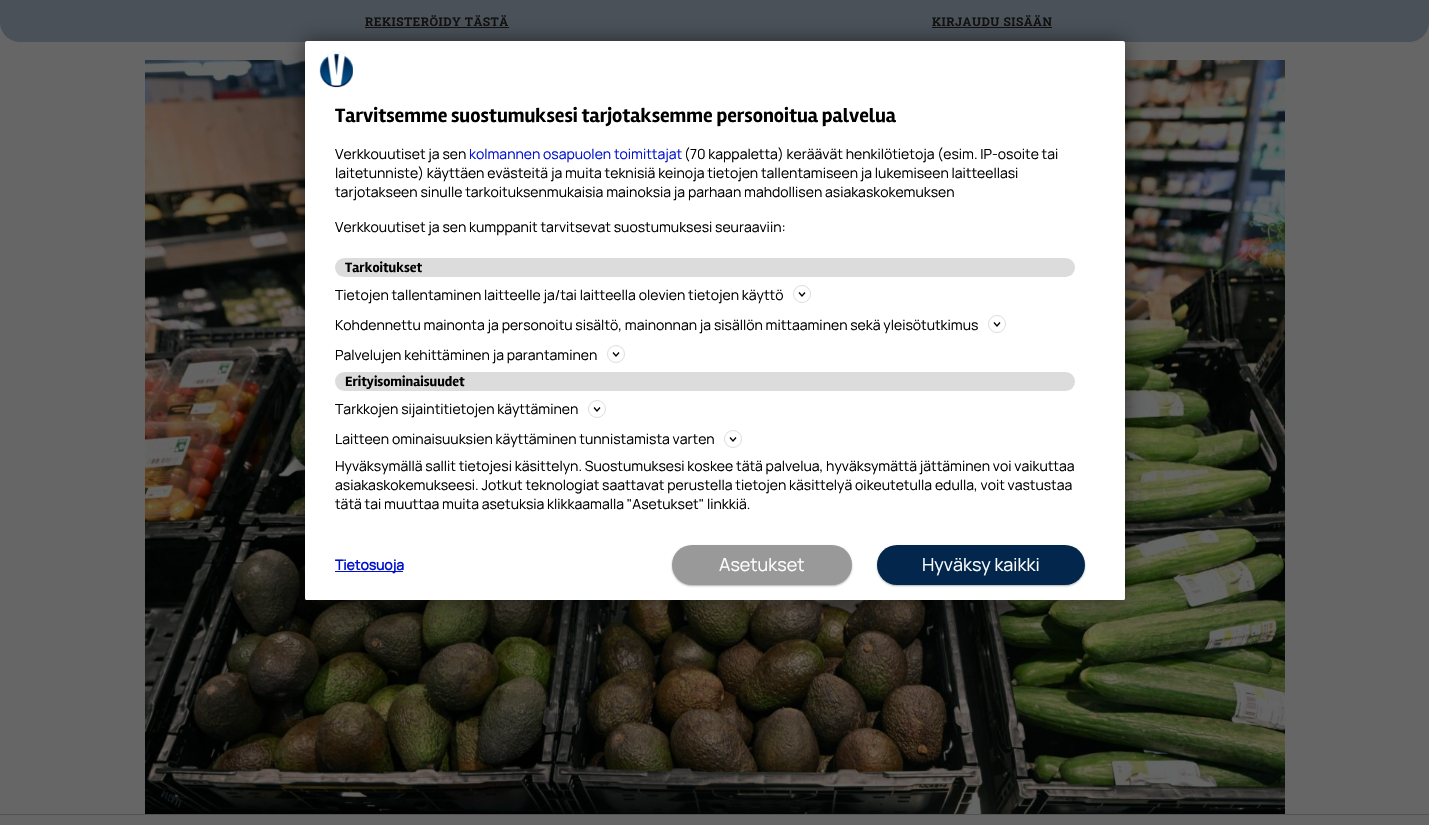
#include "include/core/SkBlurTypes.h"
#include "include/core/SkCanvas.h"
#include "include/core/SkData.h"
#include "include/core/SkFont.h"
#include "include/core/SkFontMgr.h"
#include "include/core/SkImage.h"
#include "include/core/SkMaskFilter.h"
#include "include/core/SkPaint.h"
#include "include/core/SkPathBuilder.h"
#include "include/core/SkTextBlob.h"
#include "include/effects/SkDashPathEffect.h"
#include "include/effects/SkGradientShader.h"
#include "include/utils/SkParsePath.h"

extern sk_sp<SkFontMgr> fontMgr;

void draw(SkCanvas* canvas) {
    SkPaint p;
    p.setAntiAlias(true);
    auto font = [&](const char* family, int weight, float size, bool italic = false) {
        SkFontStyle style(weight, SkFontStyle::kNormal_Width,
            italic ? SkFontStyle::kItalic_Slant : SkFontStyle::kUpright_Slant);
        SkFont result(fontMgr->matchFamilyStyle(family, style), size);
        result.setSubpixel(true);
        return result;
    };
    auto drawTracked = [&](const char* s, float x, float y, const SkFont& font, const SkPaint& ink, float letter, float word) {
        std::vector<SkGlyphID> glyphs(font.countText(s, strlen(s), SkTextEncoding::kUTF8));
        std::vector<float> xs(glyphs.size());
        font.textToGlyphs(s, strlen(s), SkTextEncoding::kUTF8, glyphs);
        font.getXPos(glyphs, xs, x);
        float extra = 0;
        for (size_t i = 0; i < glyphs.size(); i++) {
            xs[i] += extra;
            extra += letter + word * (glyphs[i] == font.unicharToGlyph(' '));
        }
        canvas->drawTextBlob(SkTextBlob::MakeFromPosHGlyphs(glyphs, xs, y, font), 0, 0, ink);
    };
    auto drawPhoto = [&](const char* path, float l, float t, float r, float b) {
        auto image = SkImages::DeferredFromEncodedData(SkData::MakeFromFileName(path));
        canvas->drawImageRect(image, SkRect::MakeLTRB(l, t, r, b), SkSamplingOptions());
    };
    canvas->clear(0xFF666666);
    p.setColor(0xFF4A5158);
    canvas->drawPath(SkPathBuilder().moveTo(0, 0).lineTo(1429, 0).lineTo(1429, 22).cubicTo(1429, 33, 1420, 42, 1409, 42).lineTo(20, 42).cubicTo(9, 42, 0, 33, 0, 22).close().detach(), p);
    auto font1 = font("Roboto Slab", 700, 12);
    p.setColor(0xFF111111);
    drawTracked("REKISTERÖIDY TÄSTÄ", 365, 26, font1, p, 0.5f, 0);
    canvas->drawRect(SkRect::MakeLTRB(365, 27, 509, 28), p);
    drawTracked("KIRJAUDU SISÄÄN", 932, 26, font1, p, 0.5f, 0);
    canvas->drawRect(SkRect::MakeLTRB(932, 27, 1052, 28), p);
    drawPhoto("media/1.png", 145, 60, 1285, 814);
    p.setColor(0x80000000);
    p.setMaskFilter(SkMaskFilter::MakeBlur(kNormal_SkBlurStyle, 10));
    canvas->drawRoundRect(SkRect::MakeLTRB(305, 41, 1125, 600), 2, 2, p);
    p.setMaskFilter(nullptr);
    p.setColor(0xFFFFFFFF);
    canvas->drawRoundRect(SkRect::MakeLTRB(305, 41, 1125, 600), 2, 2, p);
    drawPhoto("media/2.png", 319, 51, 353, 88);
    auto font2 = font("Rambla", 700, 20);
    p.setColor(0xFF000000);
    canvas->drawString("Tarvitsemme suostumuksesi tarjotaksemme personoitua palvelua", 335, 122, font2, p);
    auto font3 = font("Manrope", 200, 14);
    canvas->drawString("Verkkouutiset ja sen", 335, 159, font3, p);
    p.setColor(0xFF0010CC);
    canvas->drawString("kolmannen osapuolen toimittajat", 469, 159, font3, p);
    p.setColor(0xFF000000);
    {
        const struct { const char* s; float x, y; } items[] = {
            {"(70 kappaletta) keräävät henkilötietoja (esim. IP-osoite tai", 684, 159},
            {"laitetunniste) käyttäen evästeitä ja muita teknisiä keinoja tietojen tallentamiseen ja lukemiseen laitteellasi", 335, 178},
            {"tarjotakseen sinulle tarkoituksenmukaisia mainoksia ja parhaan mahdollisen asiakaskokemuksen", 335, 197},
            {"Verkkouutiset ja sen kumppanit tarvitsevat suostumuksesi seuraaviin:", 335, 232},
        };
        for (auto [s, x, y] : items) {
            canvas->drawString(s, x, y, font3, p);
        }
    }
    p.setColor(0xFFDCDCDC);
    canvas->drawRoundRect(SkRect::MakeLTRB(335, 258, 1075, 277), 9.5f, 9.5f, p);
    auto font4 = font("Rambla", 700, 14);
    p.setColor(0xFF000000);
    canvas->drawString("Tarkoitukset", 345, 272, font4, p);
    canvas->drawString("Tietojen tallentaminen laitteelle ja/tai laitteella olevien tietojen käyttö", 335, 300, font3, p);
    p.setStyle(SkPaint::kStroke_Style);
    p.setStrokeWidth(1.3f);
    canvas->drawPath(SkPathBuilder().moveTo(799, 292.5f).lineTo(802, 296).lineTo(805, 292.5f).detach(), p);
    p.setStrokeWidth(0.6f);
    p.setColor(0xFFC4C4C4);
    canvas->drawCircle(802, 294, 8.5f, p);
    p.setStyle(SkPaint::kFill_Style);
    p.setColor(0xFF000000);
    canvas->drawString("Kohdennettu mainonta ja personoitu sisältö, mainonnan ja sisällön mittaaminen sekä yleisötutkimus", 335, 330, font3, p);
    p.setStyle(SkPaint::kStroke_Style);
    p.setStrokeWidth(1.3f);
    canvas->drawPath(SkPathBuilder().moveTo(994, 322.5f).lineTo(997, 326).lineTo(1000, 322.5f).detach(), p);
    p.setStrokeWidth(0.6f);
    p.setColor(0xFFC4C4C4);
    canvas->drawCircle(997, 324, 8.5f, p);
    p.setStyle(SkPaint::kFill_Style);
    p.setColor(0xFF000000);
    canvas->drawString("Palvelujen kehittäminen ja parantaminen", 335, 360, font3, p);
    p.setStyle(SkPaint::kStroke_Style);
    p.setStrokeWidth(1.3f);
    canvas->drawPath(SkPathBuilder().moveTo(613, 352.5f).lineTo(616, 356).lineTo(619, 352.5f).detach(), p);
    p.setStrokeWidth(0.6f);
    p.setColor(0xFFC4C4C4);
    canvas->drawCircle(616, 354, 8.5f, p);
    p.setStyle(SkPaint::kFill_Style);
    p.setColor(0xFFDCDCDC);
    canvas->drawRoundRect(SkRect::MakeLTRB(335, 372, 1075, 391), 9.5f, 9.5f, p);
    p.setColor(0xFF000000);
    canvas->drawString("Erityisominaisuudet", 345, 386, font4, p);
    canvas->drawString("Tarkkojen sijaintitietojen käyttäminen", 335, 414, font3, p);
    p.setStyle(SkPaint::kStroke_Style);
    p.setStrokeWidth(1.3f);
    canvas->drawPath(SkPathBuilder().moveTo(594, 407.5f).lineTo(597, 411).lineTo(600, 407.5f).detach(), p);
    p.setStrokeWidth(0.6f);
    p.setColor(0xFFC4C4C4);
    canvas->drawCircle(597, 409, 8.5f, p);
    p.setStyle(SkPaint::kFill_Style);
    p.setColor(0xFF000000);
    canvas->drawString("Laitteen ominaisuuksien käyttäminen tunnistamista varten", 335, 444, font3, p);
    p.setStyle(SkPaint::kStroke_Style);
    p.setStrokeWidth(1.3f);
    canvas->drawPath(SkPathBuilder().moveTo(730, 437.5f).lineTo(733, 441).lineTo(736, 437.5f).detach(), p);
    p.setStrokeWidth(0.6f);
    p.setColor(0xFFC4C4C4);
    canvas->drawCircle(733, 439, 8.5f, p);
    p.setStyle(SkPaint::kFill_Style);
    p.setColor(0xFF000000);
    {
        const struct { const char* s; float x, y; } items[] = {
            {"Hyväksymällä sallit tietojesi käsittelyn. Suostumuksesi koskee tätä palvelua, hyväksymättä jättäminen voi vaikuttaa", 335, 471},
            {"asiakaskokemukseesi. Jotkut teknologiat saattavat perustella tietojen käsittelyä oikeutetulla edulla, voit vastustaa", 335, 490},
            {"tätä tai muuttaa muita asetuksia klikkaamalla \"Asetukset\" linkkiä.", 335, 509},
        };
        for (auto [s, x, y] : items) {
            canvas->drawString(s, x, y, font3, p);
        }
    }
    p.setColor(0xFFFFFFFF);
    canvas->drawPath(SkPathBuilder().moveTo(305, 530).lineTo(1125, 530).lineTo(1125, 598).cubicTo(1125, 599, 1124, 600, 1123, 600).lineTo(307, 600).cubicTo(306, 600, 305, 599, 305, 598).close().detach(), p);
    p.setColor(0xFF0010CC);
    canvas->drawRect(SkRect::MakeLTRB(335, 571, 403, 572), p);
    auto font5 = font("Manrope", 700, 14);
    canvas->drawString("Tietosuoja", 335, 570, font5, p);
    p.setColor(0x4D000000);
    p.setMaskFilter(SkMaskFilter::MakeBlur(kNormal_SkBlurStyle, 1));
    canvas->drawRoundRect(SkRect::MakeLTRB(672, 546, 852, 586), 20, 20, p);
    p.setMaskFilter(nullptr);
    p.setColor(0xFF999999);
    canvas->drawRoundRect(SkRect::MakeLTRB(672, 545, 852, 585), 20, 20, p);
    auto font6 = font("Manrope", 200, 18);
    p.setColor(0xFFFFFFFF);
    canvas->drawString("Asetukset", 719, 571, font6, p);
    p.setColor(0x4D000000);
    p.setMaskFilter(SkMaskFilter::MakeBlur(kNormal_SkBlurStyle, 1));
    canvas->drawRoundRect(SkRect::MakeLTRB(877, 546, 1085, 586), 20, 20, p);
    p.setMaskFilter(nullptr);
    p.setColor(0xFF02264C);
    canvas->drawRoundRect(SkRect::MakeLTRB(877, 545, 1085, 585), 20, 20, p);
    p.setColor(0xFFFFFFFF);
    canvas->drawString("Hyväksy kaikki", 922, 571, font6, p);
    p.setColor(0xFF525252);
    canvas->drawRect(SkRect::MakeLTRB(0, 814, 1429, 815), p);
}
